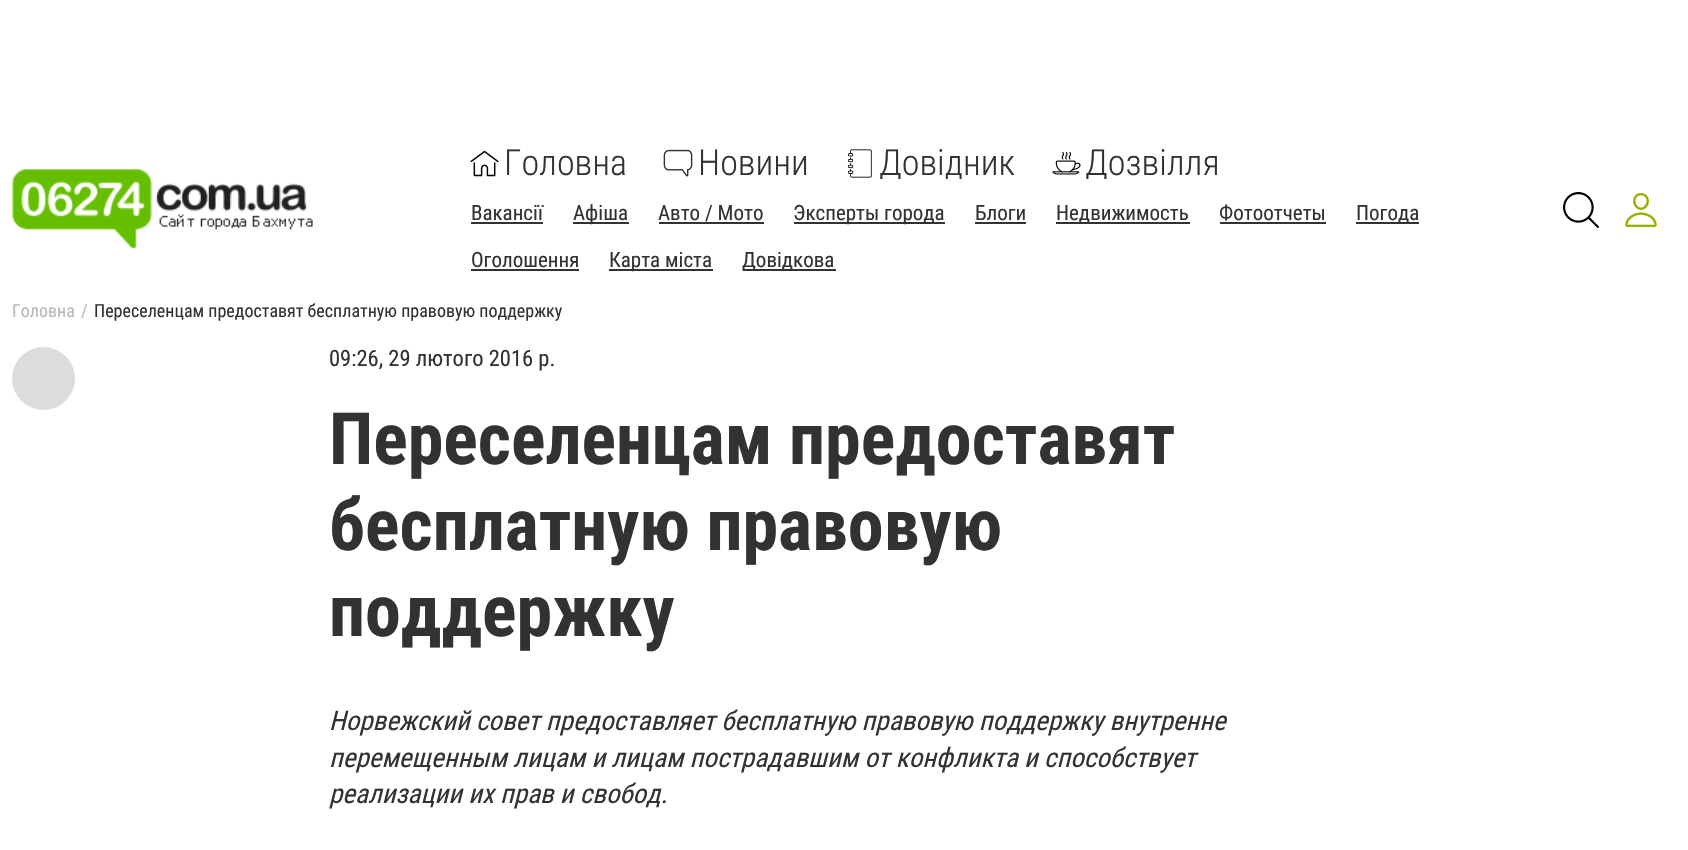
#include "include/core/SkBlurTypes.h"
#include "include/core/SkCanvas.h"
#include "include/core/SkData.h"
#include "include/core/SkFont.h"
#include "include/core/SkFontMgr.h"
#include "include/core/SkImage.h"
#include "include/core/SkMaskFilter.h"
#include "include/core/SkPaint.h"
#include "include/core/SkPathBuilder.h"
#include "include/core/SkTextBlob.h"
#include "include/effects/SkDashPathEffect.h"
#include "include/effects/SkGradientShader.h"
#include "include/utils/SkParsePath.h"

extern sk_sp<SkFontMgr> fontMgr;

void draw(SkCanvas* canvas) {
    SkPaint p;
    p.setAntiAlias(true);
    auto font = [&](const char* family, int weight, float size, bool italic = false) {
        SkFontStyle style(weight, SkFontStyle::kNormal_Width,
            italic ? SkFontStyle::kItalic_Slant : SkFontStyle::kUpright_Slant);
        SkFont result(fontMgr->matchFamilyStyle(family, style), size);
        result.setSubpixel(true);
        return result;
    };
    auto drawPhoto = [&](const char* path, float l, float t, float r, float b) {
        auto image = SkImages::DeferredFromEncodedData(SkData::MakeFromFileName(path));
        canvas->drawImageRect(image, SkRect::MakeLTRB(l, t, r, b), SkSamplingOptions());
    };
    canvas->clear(0xFFFFFFFF);
    drawPhoto("media/1.png", 12, 168, 313, 250);
    drawPhoto("media/2.png", 470, 150, 499, 177);
    auto font1 = font("Roboto Condensed", 300, 36);
    p.setColor(0xFF323232);
    canvas->drawString("Головна", 504, 175, font1, p);
    drawPhoto("media/3.png", 663, 149, 693, 177);
    canvas->drawString("Новини", 698, 175, font1, p);
    drawPhoto("media/4.png", 847, 149, 872, 178);
    canvas->save();
    canvas->clipRect(SkRect::MakeLTRB(845, 149, 1016, 179));
    canvas->drawString("Довідник", 879, 175, font1, p);
    canvas->restore();
    drawPhoto("media/5.png", 1052, 152, 1081, 175);
    canvas->save();
    canvas->clipRect(SkRect::MakeLTRB(1052, 149, 1220, 179));
    canvas->drawString("Дозвілля", 1085, 175, font1, p);
    canvas->restore();
    auto font2 = font("Roboto Condensed", 400, 21);
    canvas->drawString("Вакансії", 471, 220, font2, p);
    canvas->drawRect(SkRect::MakeLTRB(471, 222, 543, 224), p);
    canvas->drawRect(SkRect::MakeLTRB(573, 222, 629, 224), p);
    canvas->drawString("Афіша", 573, 220, font2, p);
    canvas->drawString("Авто / Мото", 658, 220, font2, p);
    canvas->drawRect(SkRect::MakeLTRB(659, 222, 764, 224), p);
    canvas->drawRect(SkRect::MakeLTRB(794, 222, 945, 224), p);
    canvas->drawString("Эксперты города", 793, 220, font2, p);
    canvas->drawString("Блоги", 975, 220, font2, p);
    canvas->drawRect(SkRect::MakeLTRB(975, 222, 1026, 224), p);
    canvas->drawRect(SkRect::MakeLTRB(1056, 222, 1190, 224), p);
    canvas->drawString("Недвижимость", 1056, 220, font2, p);
    canvas->drawString("Фотоотчеты", 1219, 220, font2, p);
    canvas->drawRect(SkRect::MakeLTRB(1220, 222, 1326, 224), p);
    canvas->drawRect(SkRect::MakeLTRB(1356, 222, 1419, 224), p);
    canvas->drawString("Погода", 1356, 220, font2, p);
    canvas->drawString("Оголошення", 471, 267, font2, p);
    canvas->drawRect(SkRect::MakeLTRB(471, 269, 579, 271), p);
    canvas->drawRect(SkRect::MakeLTRB(609, 269, 713, 271), p);
    canvas->drawString("Карта міста", 609, 267, font2, p);
    canvas->drawRect(SkRect::MakeLTRB(743, 269, 836, 271), p);
    canvas->drawString("Довідкова", 742, 267, font2, p);
    drawPhoto("media/6.png", 1563, 192, 1599, 228);
    drawPhoto("media/7.png", 1625, 193, 1657, 228);
    auto font3 = font("Roboto Condensed", 400, 18);
    p.setColor(0xFFB7B7B7);
    canvas->drawString("Головна", 12, 317, font3, p);
    canvas->drawString("/", 81, 317, font3, p);
    p.setColor(0xFF323232);
    canvas->drawString("Переселенцам предоставят бесплатную правовую поддержку", 94, 317, font3, p);
    p.setColor(0xFFDCDCDC);
    canvas->drawCircle(43.5f, 378.5f, 31.5f, p);
    auto font4 = font("Roboto Condensed", 400, 22.5f);
    p.setColor(0xFF323232);
    canvas->drawString("09:26, 29 лютого 2016 р.", 329, 366, font4, p);
    auto font5 = font("Roboto Condensed", 700, 72);
    {
        const struct { const char* s; float x, y; } items[] = {
            {"Переселенцам предоставят", 329, 464},
            {"бесплатную правовую", 329, 550},
            {"поддержку", 329, 636},
        };
        for (auto [s, x, y] : items) {
            canvas->drawString(s, x, y, font5, p);
        }
    }
    auto font6 = font("Roboto Condensed", 400, 27, true);
    {
        const struct { const char* s; float x, y; } items[] = {
            {"Норвежский совет предоставляет бесплатную правовую поддержку внутренне", 329, 730},
            {"перемещенным лицам и лицам пострадавшим от конфликта и способствует", 329, 767},
            {"реализации их прав и свобод.", 329, 803},
        };
        for (auto [s, x, y] : items) {
            canvas->drawString(s, x, y, font6, p);
        }
    }
}
